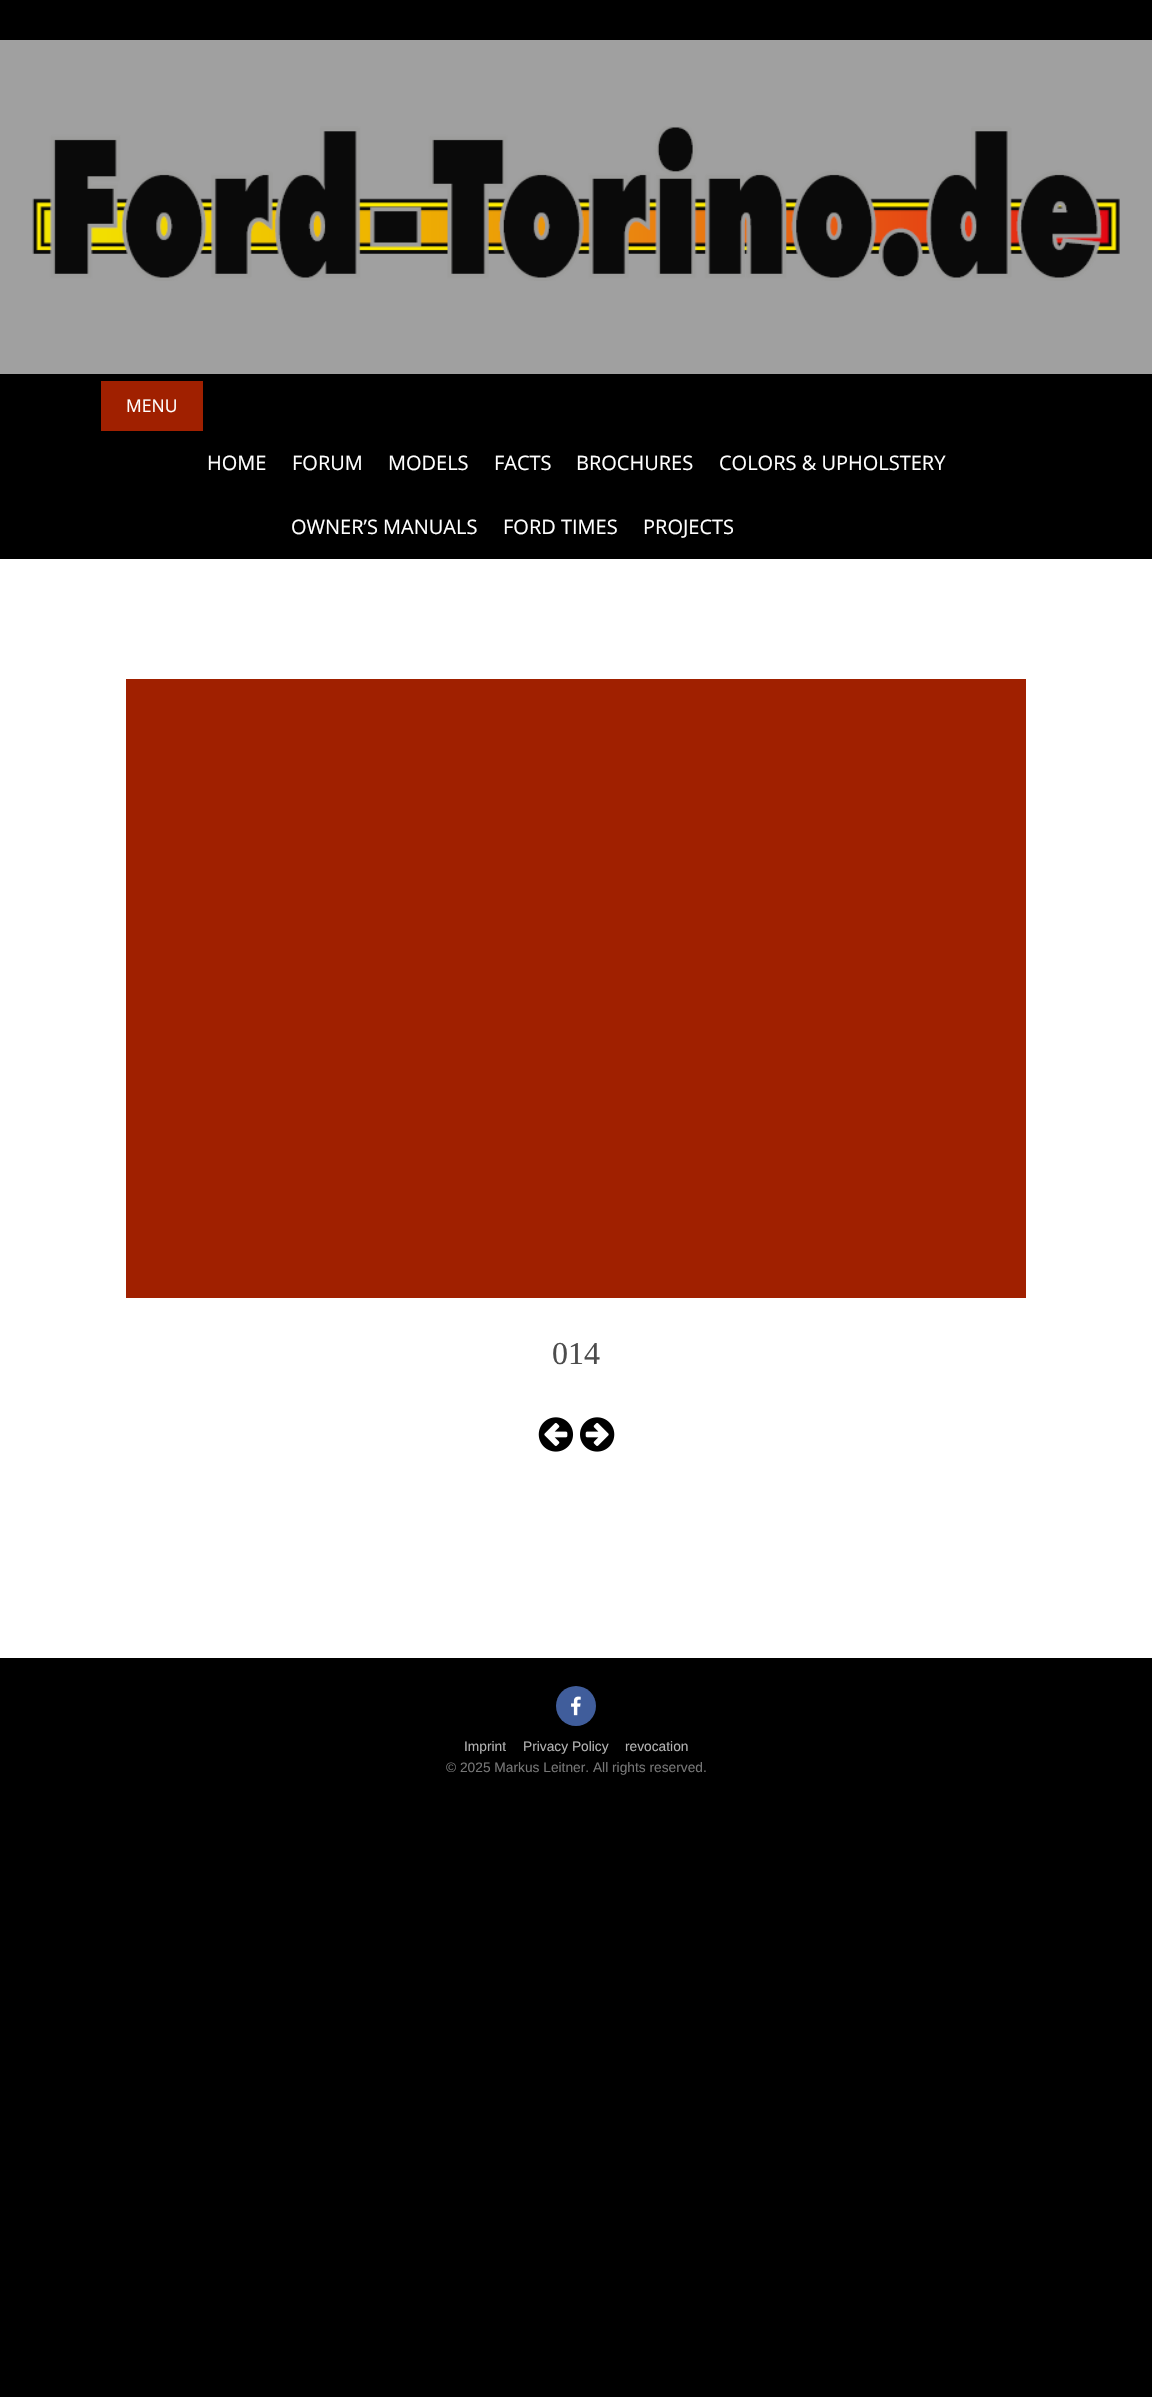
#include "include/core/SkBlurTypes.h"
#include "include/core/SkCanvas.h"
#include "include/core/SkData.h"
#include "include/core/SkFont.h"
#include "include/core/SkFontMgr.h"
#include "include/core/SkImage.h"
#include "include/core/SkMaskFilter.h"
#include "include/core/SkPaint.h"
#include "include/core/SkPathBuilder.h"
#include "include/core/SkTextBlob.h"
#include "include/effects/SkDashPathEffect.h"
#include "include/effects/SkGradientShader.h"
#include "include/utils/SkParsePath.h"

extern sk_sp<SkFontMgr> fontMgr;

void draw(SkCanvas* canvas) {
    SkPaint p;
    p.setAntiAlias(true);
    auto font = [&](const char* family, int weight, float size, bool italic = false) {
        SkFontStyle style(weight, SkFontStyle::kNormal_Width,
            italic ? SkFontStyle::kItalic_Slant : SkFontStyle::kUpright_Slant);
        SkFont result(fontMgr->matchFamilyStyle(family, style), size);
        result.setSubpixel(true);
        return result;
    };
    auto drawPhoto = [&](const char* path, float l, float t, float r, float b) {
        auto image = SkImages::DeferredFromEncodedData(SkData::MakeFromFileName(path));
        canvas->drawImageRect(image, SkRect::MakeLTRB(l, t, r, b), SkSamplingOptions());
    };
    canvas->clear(0xFF000000);
    p.setColor(0xFFA0A0A0);
    canvas->drawRect(SkRect::MakeLTRB(0, 40, 1152, 374), p);
    drawPhoto("media/1.png", 32, 126, 1120, 281);
    p.setColor(0xFFA02000);
    canvas->drawRect(SkRect::MakeLTRB(101, 381, 203, 431), p);
    auto font1 = font("Open Sans", 400, 17.5f);
    p.setColor(0xFFFFFFFF);
    canvas->drawString("MENU", 126, 412, font1, p);
    auto font2 = font("Open Sans", 400, 20);
    {
        const struct { const char* s; float x, y; } items[] = {
            {"HOME", 207, 470},
            {"FORUM", 292, 470},
            {"MODELS", 388, 470},
            {"FACTS", 494, 470},
            {"BROCHURES", 576, 470},
            {"COLORS & UPHOLSTERY", 719, 470},
            {"OWNER’S MANUALS", 291, 534},
            {"FORD TIMES", 503, 534},
            {"PROJECTS", 643, 534},
        };
        for (auto [s, x, y] : items) {
            canvas->drawString(s, x, y, font2, p);
        }
    }
    canvas->drawRect(SkRect::MakeLTRB(0, 559, 1152, 1658), p);
    p.setColor(0xFFA02000);
    canvas->drawRect(SkRect::MakeLTRB(126, 679, 1026, 1298), p);
    auto font3 = font("Liberation Serif", 400, 32);
    p.setColor(0xFF4C4C4C);
    canvas->drawString("014", 552, 1364, font3, p);
    drawPhoto("media/2.png", 538, 1417, 574, 1452);
    drawPhoto("media/3.png", 580, 1417, 615, 1452);
    p.setColor(0xFF405D9B);
    canvas->drawCircle(576, 1706, 20, p);
    drawPhoto("media/4.png", 571, 1696, 581, 1716);
    auto font4 = font("Liberation Sans", 400, 13.75f);
    p.setColor(0xFFB2B2B2);
    {
        const struct { const char* s; float x, y; } items[] = {
            {"Imprint", 464, 1751},
            {"Privacy Policy", 523, 1751},
            {"revocation", 625, 1751},
        };
        for (auto [s, x, y] : items) {
            canvas->drawString(s, x, y, font4, p);
        }
    }
    p.setColor(0xFF767676);
    canvas->drawString("© 2025 Markus Leitner. All rights reserved.", 446, 1772, font4, p);
}
